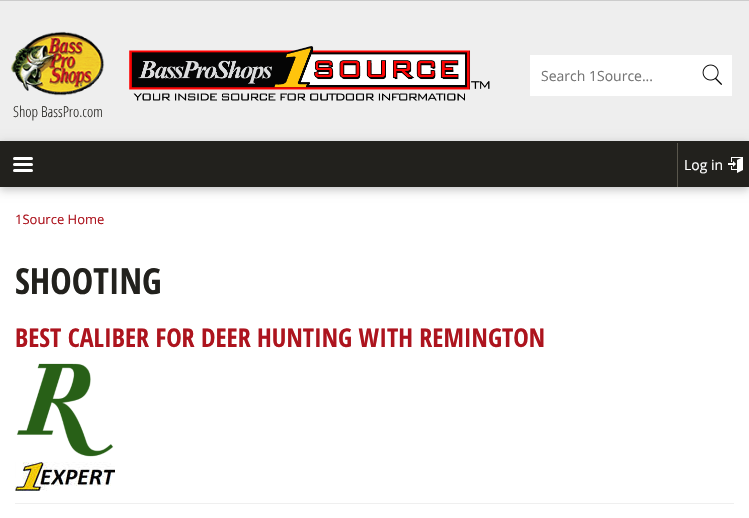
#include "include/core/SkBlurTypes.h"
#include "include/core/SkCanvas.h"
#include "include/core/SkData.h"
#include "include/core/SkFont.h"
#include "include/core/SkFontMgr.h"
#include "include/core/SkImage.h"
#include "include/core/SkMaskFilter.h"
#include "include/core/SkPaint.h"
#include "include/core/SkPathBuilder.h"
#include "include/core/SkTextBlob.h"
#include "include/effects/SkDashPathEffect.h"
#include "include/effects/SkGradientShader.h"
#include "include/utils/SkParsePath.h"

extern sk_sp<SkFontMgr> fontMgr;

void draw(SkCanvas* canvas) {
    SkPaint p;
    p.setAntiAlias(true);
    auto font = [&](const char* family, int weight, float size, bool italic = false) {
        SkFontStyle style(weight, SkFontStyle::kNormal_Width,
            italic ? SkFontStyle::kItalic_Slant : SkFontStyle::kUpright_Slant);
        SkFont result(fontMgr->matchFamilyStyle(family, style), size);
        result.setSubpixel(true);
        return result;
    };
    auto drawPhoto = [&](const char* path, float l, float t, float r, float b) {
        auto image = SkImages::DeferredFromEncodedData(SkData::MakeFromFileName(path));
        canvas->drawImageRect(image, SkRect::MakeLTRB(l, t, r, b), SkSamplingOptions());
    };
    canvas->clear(0xFFFFFFFF);
    p.setColor(0xFFEEEEEE);
    canvas->drawRect(SkRect::MakeLTRB(0, 1, 749, 141), p);
    p.setColor(0xFFCCCCCC);
    canvas->drawRect(SkRect::MakeLTRB(0, 0, 749, 1), p);
    drawPhoto("media/1.png", 129, 46, 490, 101);
    p.setColor(0xFFFFFFFF);
    canvas->drawRect(SkRect::MakeLTRB(530, 55, 732, 96), p);
    auto font1 = font("Open Sans", 400, 14);
    p.setColor(0xFF757575);
    canvas->drawString("Search 1Source...", 541, 81, font1, p);
    drawPhoto("media/2.png", 702, 64, 722, 85);
    drawPhoto("media/3.png", 10, 31, 105, 96);
    auto font2 = font("Open Sans Condensed", 300, 15);
    p.setColor(0xFF22211D);
    canvas->drawString("Shop BassPro.com", 13, 117, font2, p);
    p.setColor(0x14000000);
    p.setMaskFilter(SkMaskFilter::MakeBlur(kNormal_SkBlurStyle, 4));
    canvas->drawRect(SkRect::MakeLTRB(0, 141, 749, 187), p);
    p.setMaskFilter(nullptr);
    p.setColor(0x29000000);
    p.setMaskFilter(SkMaskFilter::MakeBlur(kNormal_SkBlurStyle, 4));
    canvas->drawRect(SkRect::MakeLTRB(0, 145, 749, 191), p);
    p.setMaskFilter(nullptr);
    p.setColor(0xFF22211D);
    canvas->drawRect(SkRect::MakeLTRB(0, 141, 749, 187), p);
    p.setColor(0xFFFFFFFF);
    canvas->drawRoundRect(SkRect::MakeLTRB(13, 157, 33, 160), 1.5f, 1.5f, p);
    canvas->drawRoundRect(SkRect::MakeLTRB(13, 163, 33, 166), 1.5f, 1.5f, p);
    canvas->drawRoundRect(SkRect::MakeLTRB(13, 169, 33, 172), 1.5f, 1.5f, p);
    p.setColor(0xFF59564C);
    canvas->drawRect(SkRect::MakeLTRB(677, 143, 678, 187), p);
    p.setColor(0xFFFFFFFF);
    canvas->drawString("Log in", 684, 170, font1, p);
    drawPhoto("media/4.png", 728, 157, 743, 173);
    auto font3 = font("Open Sans", 400, 13);
    p.setColor(0xFFAD141E);
    canvas->drawString("1Source Home", 15, 224, font3, p);
    auto font4 = font("Open Sans Condensed", 700, 36);
    p.setColor(0xFF22211D);
    canvas->drawString("SHOOTING", 15, 294, font4, p);
    auto font5 = font("Open Sans Condensed", 700, 26);
    p.setColor(0xFFAD141E);
    canvas->drawString("BEST CALIBER FOR DEER HUNTING WITH REMINGTON", 15, 347, font5, p);
    p.setColor(0xFFEFEFEF);
    canvas->drawRect(SkRect::MakeLTRB(15, 503, 734, 504), p);
    drawPhoto("media/5.png", 16, 363, 114, 457);
    drawPhoto("media/6.png", 15, 462, 115, 491);
}
